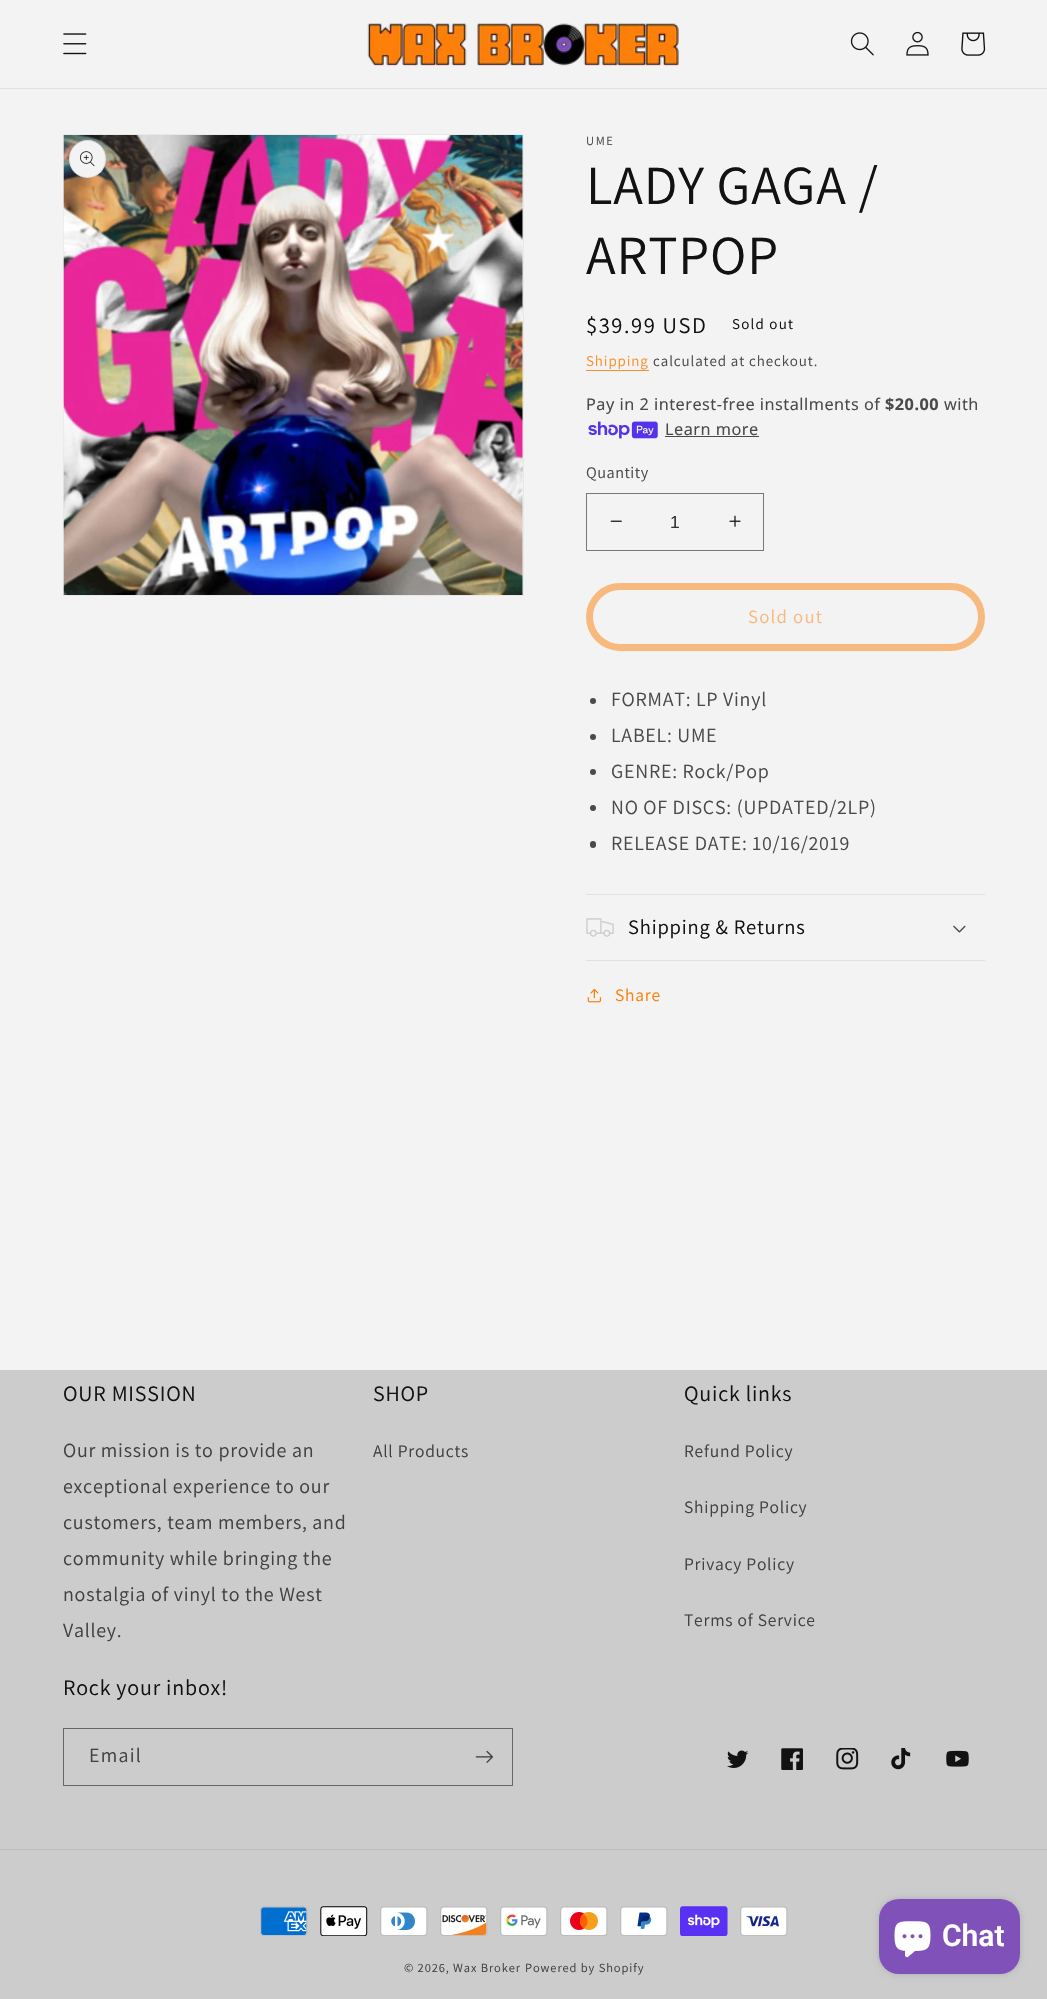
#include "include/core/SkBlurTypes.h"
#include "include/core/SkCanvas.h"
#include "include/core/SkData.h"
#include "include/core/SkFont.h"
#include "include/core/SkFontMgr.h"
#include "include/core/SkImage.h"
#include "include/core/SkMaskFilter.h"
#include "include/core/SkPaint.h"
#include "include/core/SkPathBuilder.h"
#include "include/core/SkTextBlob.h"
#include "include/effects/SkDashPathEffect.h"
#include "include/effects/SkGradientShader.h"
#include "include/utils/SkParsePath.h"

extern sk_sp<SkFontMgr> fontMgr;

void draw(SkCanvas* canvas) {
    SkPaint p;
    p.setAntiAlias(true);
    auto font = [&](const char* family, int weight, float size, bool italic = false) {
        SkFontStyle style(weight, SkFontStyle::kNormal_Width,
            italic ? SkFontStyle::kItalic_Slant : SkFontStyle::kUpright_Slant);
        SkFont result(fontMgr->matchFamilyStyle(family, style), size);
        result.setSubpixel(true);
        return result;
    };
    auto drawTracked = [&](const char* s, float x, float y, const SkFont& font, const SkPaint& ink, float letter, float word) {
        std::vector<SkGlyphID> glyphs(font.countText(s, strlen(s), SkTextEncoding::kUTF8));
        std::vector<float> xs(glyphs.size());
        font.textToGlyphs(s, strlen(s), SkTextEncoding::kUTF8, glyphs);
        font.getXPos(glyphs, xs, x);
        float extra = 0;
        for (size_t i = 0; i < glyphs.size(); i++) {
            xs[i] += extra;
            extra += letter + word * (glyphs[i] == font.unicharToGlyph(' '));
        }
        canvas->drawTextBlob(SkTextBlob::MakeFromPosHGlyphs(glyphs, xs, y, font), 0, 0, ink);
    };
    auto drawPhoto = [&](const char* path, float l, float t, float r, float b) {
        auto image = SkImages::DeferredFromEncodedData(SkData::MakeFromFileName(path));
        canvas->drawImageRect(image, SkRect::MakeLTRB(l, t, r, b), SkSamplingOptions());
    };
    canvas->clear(0xFFF3F3F3);
    p.setColor(0xFFE1E1E1);
    canvas->drawRect(SkRect::MakeLTRB(0, 88, 1047, 89), p);
    drawPhoto("media/1.png", 63, 33, 87, 55);
    drawPhoto("media/2.png", 367, 23, 679, 66);
    drawPhoto("media/3.png", 850, 32, 874, 56);
    drawPhoto("media/4.png", 906, 31, 929, 56);
    drawPhoto("media/5.png", 961, 32, 986, 56);
    p.setStyle(SkPaint::kStroke_Style);
    p.setStrokeWidth(1);
    p.setColor(0xFFE8E8E8);
    canvas->drawRect(SkRect::MakeLTRB(63.5f, 134.5f, 523.5f, 595.5f), p);
    drawPhoto("media/6.png", 63, 135, 523, 595);
    p.setStyle(SkPaint::kFill_Style);
    p.setColor(0xFFF3F3F3);
    canvas->drawRoundRect(SkRect::MakeLTRB(69, 140, 106, 178), 18.5f, 18.5f, p);
    p.setStyle(SkPaint::kStroke_Style);
    p.setColor(0x1A121212);
    canvas->drawRoundRect(SkRect::MakeLTRB(69.5f, 140.5f, 105.5f, 177.5f), 18, 18, p);
    drawPhoto("media/7.png", 80, 151, 95, 167);
    auto font1 = font("Assistant", 400, 12.5f);
    p.setStyle(SkPaint::kFill_Style);
    p.setColor(0xFF4A4A4A);
    drawTracked("UME", 586, 145, font1, p, 1.6f, 0);
    auto font2 = font("Assistant", 400, 55);
    p.setColor(0xFF121212);
    drawTracked("LADY GAGA /", 586, 204, font2, p, 0.8f, 0);
    drawTracked("ARTPOP", 586, 274, font2, p, 0.8f, 0);
    auto font3 = font("Assistant", 400, 22.5f);
    drawTracked("$39.99 USD", 586, 333, font3, p, 1.6f, 0);
    auto font4 = font("Assistant", 400, 15);
    drawTracked("Sold out", 732, 329, font4, p, 1.25f, 0);
    p.setColor(0xFFFB902B);
    drawTracked("Shipping", 586, 366, font4, p, 0.9f, 0);
    canvas->drawRect(SkRect::MakeLTRB(586, 370, 649, 371), p);
    p.setColor(0xFF4A4A4A);
    drawTracked("calculated at checkout.", 653, 366, font4, p, 0.9f, 0);
    auto font5 = font("Noto Sans", 400, 16.25f);
    drawTracked("Pay in 2 interest-free installments of", 586, 410, font5, p, 0.5f, 0);
    auto font6 = font("Noto Sans", 700, 16.25f);
    drawTracked("$20.00", 885, 410, font6, p, 0.5f, 0);
    drawTracked("with", 944, 410, font5, p, 0.5f, 0);
    drawPhoto("media/8.png", 588, 421, 658, 439);
    drawTracked("Learn more", 665, 435, font5, p, 0.5f, 0);
    canvas->drawRect(SkRect::MakeLTRB(665, 436, 759, 437), p);
    auto font7 = font("Assistant", 400, 16.25f);
    drawTracked("Quantity", 586, 478, font7, p, 0.5f, 0);
    drawPhoto("media/9.png", 610, 520, 622, 522);
    drawPhoto("media/10.png", 729, 515, 741, 527);
    p.setStyle(SkPaint::kStroke_Style);
    p.setColor(0xFF777777);
    canvas->drawRect(SkRect::MakeLTRB(586.5f, 493.5f, 763.5f, 550.5f), p);
    auto font8 = font("Liberation Sans", 400, 17.5f);
    p.setStyle(SkPaint::kFill_Style);
    p.setColor(0xFF343434);
    canvas->drawString("1", 670, 528, font8, p);
    p.setStyle(SkPaint::kStroke_Style);
    p.setStrokeWidth(7);
    p.setColor(0xFFF8B97E);
    canvas->drawRoundRect(SkRect::MakeLTRB(589.5f, 586.5f, 981.5f, 647.5f), 30.5f, 30.5f, p);
    auto font9 = font("Assistant", 400, 18.75f);
    p.setStyle(SkPaint::kFill_Style);
    drawTracked("Sold out", 748, 623, font9, p, 1.25f, 0);
    p.setColor(0xFF4A4A4A);
    canvas->drawCircle(593, 701, 3, p);
    auto font10 = font("Assistant", 400, 20);
    drawTracked("FORMAT: LP Vinyl", 611, 706, font10, p, 0.75f, 0);
    canvas->drawCircle(593, 737, 3, p);
    drawTracked("LABEL: UME", 611, 742, font10, p, 0.75f, 0);
    canvas->drawCircle(593, 772, 3, p);
    drawTracked("GENRE: Rock/Pop", 611, 778, font10, p, 0.75f, 0);
    canvas->drawCircle(593, 808, 3, p);
    drawTracked("NO OF DISCS: (UPDATED/2LP)", 611, 814, font10, p, 0.75f, 0);
    canvas->drawRoundRect(SkRect::MakeLTRB(590, 841, 596, 848), 3, 3, p);
    drawTracked("RELEASE DATE: 10/16/2019", 611, 850, font10, p, 0.75f, 0);
    p.setColor(0xFFE1E1E1);
    canvas->drawRect(SkRect::MakeLTRB(586, 894, 985, 895), p);
    canvas->drawRect(SkRect::MakeLTRB(586, 960, 985, 961), p);
    drawPhoto("media/11.png", 586, 918, 614, 937);
    auto font11 = font("Assistant", 400, 20.6f);
    p.setColor(0xFF121212);
    drawTracked("Shipping & Returns", 628, 934, font11, p, 0.8f, 0);
    drawPhoto("media/12.png", 953, 925, 966, 933);
    drawPhoto("media/13.png", 587, 988, 602, 1003);
    auto font12 = font("Assistant", 400, 17.5f);
    p.setColor(0xFFFC7F08);
    drawTracked("Share", 615, 1001, font12, p, 0.75f, 0);
    p.setColor(0xFFCCCCCC);
    canvas->drawRect(SkRect::MakeLTRB(0, 1370, 1047, 1999), p);
    auto font13 = font("Assistant", 400, 22);
    p.setColor(0xFF121212);
    drawTracked("OUR MISSION", 63, 1401, font13, p, 0.8f, 0);
    p.setColor(0xFF414141);
    {
        const struct { const char* s; float x, y; } items[] = {
            {"Our mission is to provide an", 63, 1457},
            {"exceptional experience to our", 63, 1493},
            {"customers, team members, and", 63, 1529},
            {"community while bringing the", 63, 1565},
            {"nostalgia of vinyl to the West", 63, 1601},
            {"Valley.", 63, 1637},
        };
        for (auto [s, x, y] : items) {
            drawTracked(s, x, y, font10, p, 0.75f, 0);
        }
    }
    p.setColor(0xFF121212);
    drawTracked("SHOP", 373, 1401, font13, p, 0.8f, 0);
    p.setColor(0xFF414141);
    drawTracked("All Products", 373, 1457, font12, p, 0.75f, 0);
    p.setColor(0xFF121212);
    drawTracked("Quick links", 684, 1401, font13, p, 0.8f, 0);
    p.setColor(0xFF414141);
    {
        const struct { const char* s; float x, y; } items[] = {
            {"Refund Policy", 684, 1457},
            {"Shipping Policy", 684, 1513},
            {"Privacy Policy", 684, 1570},
            {"Terms of Service", 684, 1626},
        };
        for (auto [s, x, y] : items) {
            drawTracked(s, x, y, font12, p, 0.75f, 0);
        }
    }
    p.setColor(0xFF121212);
    drawTracked("Rock your inbox!", 63, 1695, font13, p, 0.8f, 0);
    p.setStyle(SkPaint::kStroke_Style);
    p.setStrokeWidth(1);
    p.setColor(0xFF666666);
    canvas->drawRect(SkRect::MakeLTRB(63.5f, 1728.5f, 512.5f, 1785.5f), p);
    p.setStyle(SkPaint::kFill_Style);
    p.setColor(0xFF414141);
    drawTracked("Email", 89, 1762, font10, p, 1.25f, 0);
    drawPhoto("media/14.png", 475, 1750, 493, 1763);
    drawPhoto("media/15.png", 727, 1750, 749, 1768);
    drawPhoto("media/16.png", 781, 1748, 803, 1770);
    drawPhoto("media/17.png", 836, 1748, 859, 1770);
    drawPhoto("media/18.png", 891, 1748, 911, 1770);
    drawPhoto("media/19.png", 946, 1750, 969, 1767);
    p.setColor(0xFFBDBDBD);
    canvas->drawRect(SkRect::MakeLTRB(0, 1849, 1047, 1850), p);
    drawPhoto("media/20.png", 260, 1906, 308, 1936);
    drawPhoto("media/21.png", 320, 1906, 368, 1936);
    drawPhoto("media/22.png", 380, 1906, 428, 1936);
    drawPhoto("media/23.png", 440, 1906, 488, 1936);
    drawPhoto("media/24.png", 500, 1906, 548, 1936);
    drawPhoto("media/25.png", 560, 1906, 608, 1936);
    drawPhoto("media/26.png", 620, 1906, 668, 1936);
    drawPhoto("media/27.png", 680, 1906, 728, 1936);
    drawPhoto("media/28.png", 740, 1906, 788, 1936);
    p.setColor(0xFF414141);
    drawTracked("© 2026, Wax Broker", 404, 1972, font1, p, 0.9f, 0);
    drawTracked("Powered by Shopify", 525, 1972, font1, p, 0.9f, 0);
    p.setColor(0x26000000);
    p.setMaskFilter(SkMaskFilter::MakeBlur(kNormal_SkBlurStyle, 3));
    canvas->drawRoundRect(SkRect::MakeLTRB(879, 1899, 1020, 1974), 20, 20, p);
    p.setMaskFilter(nullptr);
    p.setColor(0xFF8151BA);
    canvas->drawRoundRect(SkRect::MakeLTRB(879, 1899, 1020, 1974), 20, 20, p);
    drawPhoto("media/29.png", 894, 1921, 931, 1958);
    auto font14 = font("Roboto", 600, 30);
    p.setColor(0xFFFFFFFF);
    canvas->drawString("Chat", 942, 1946, font14, p);
}
